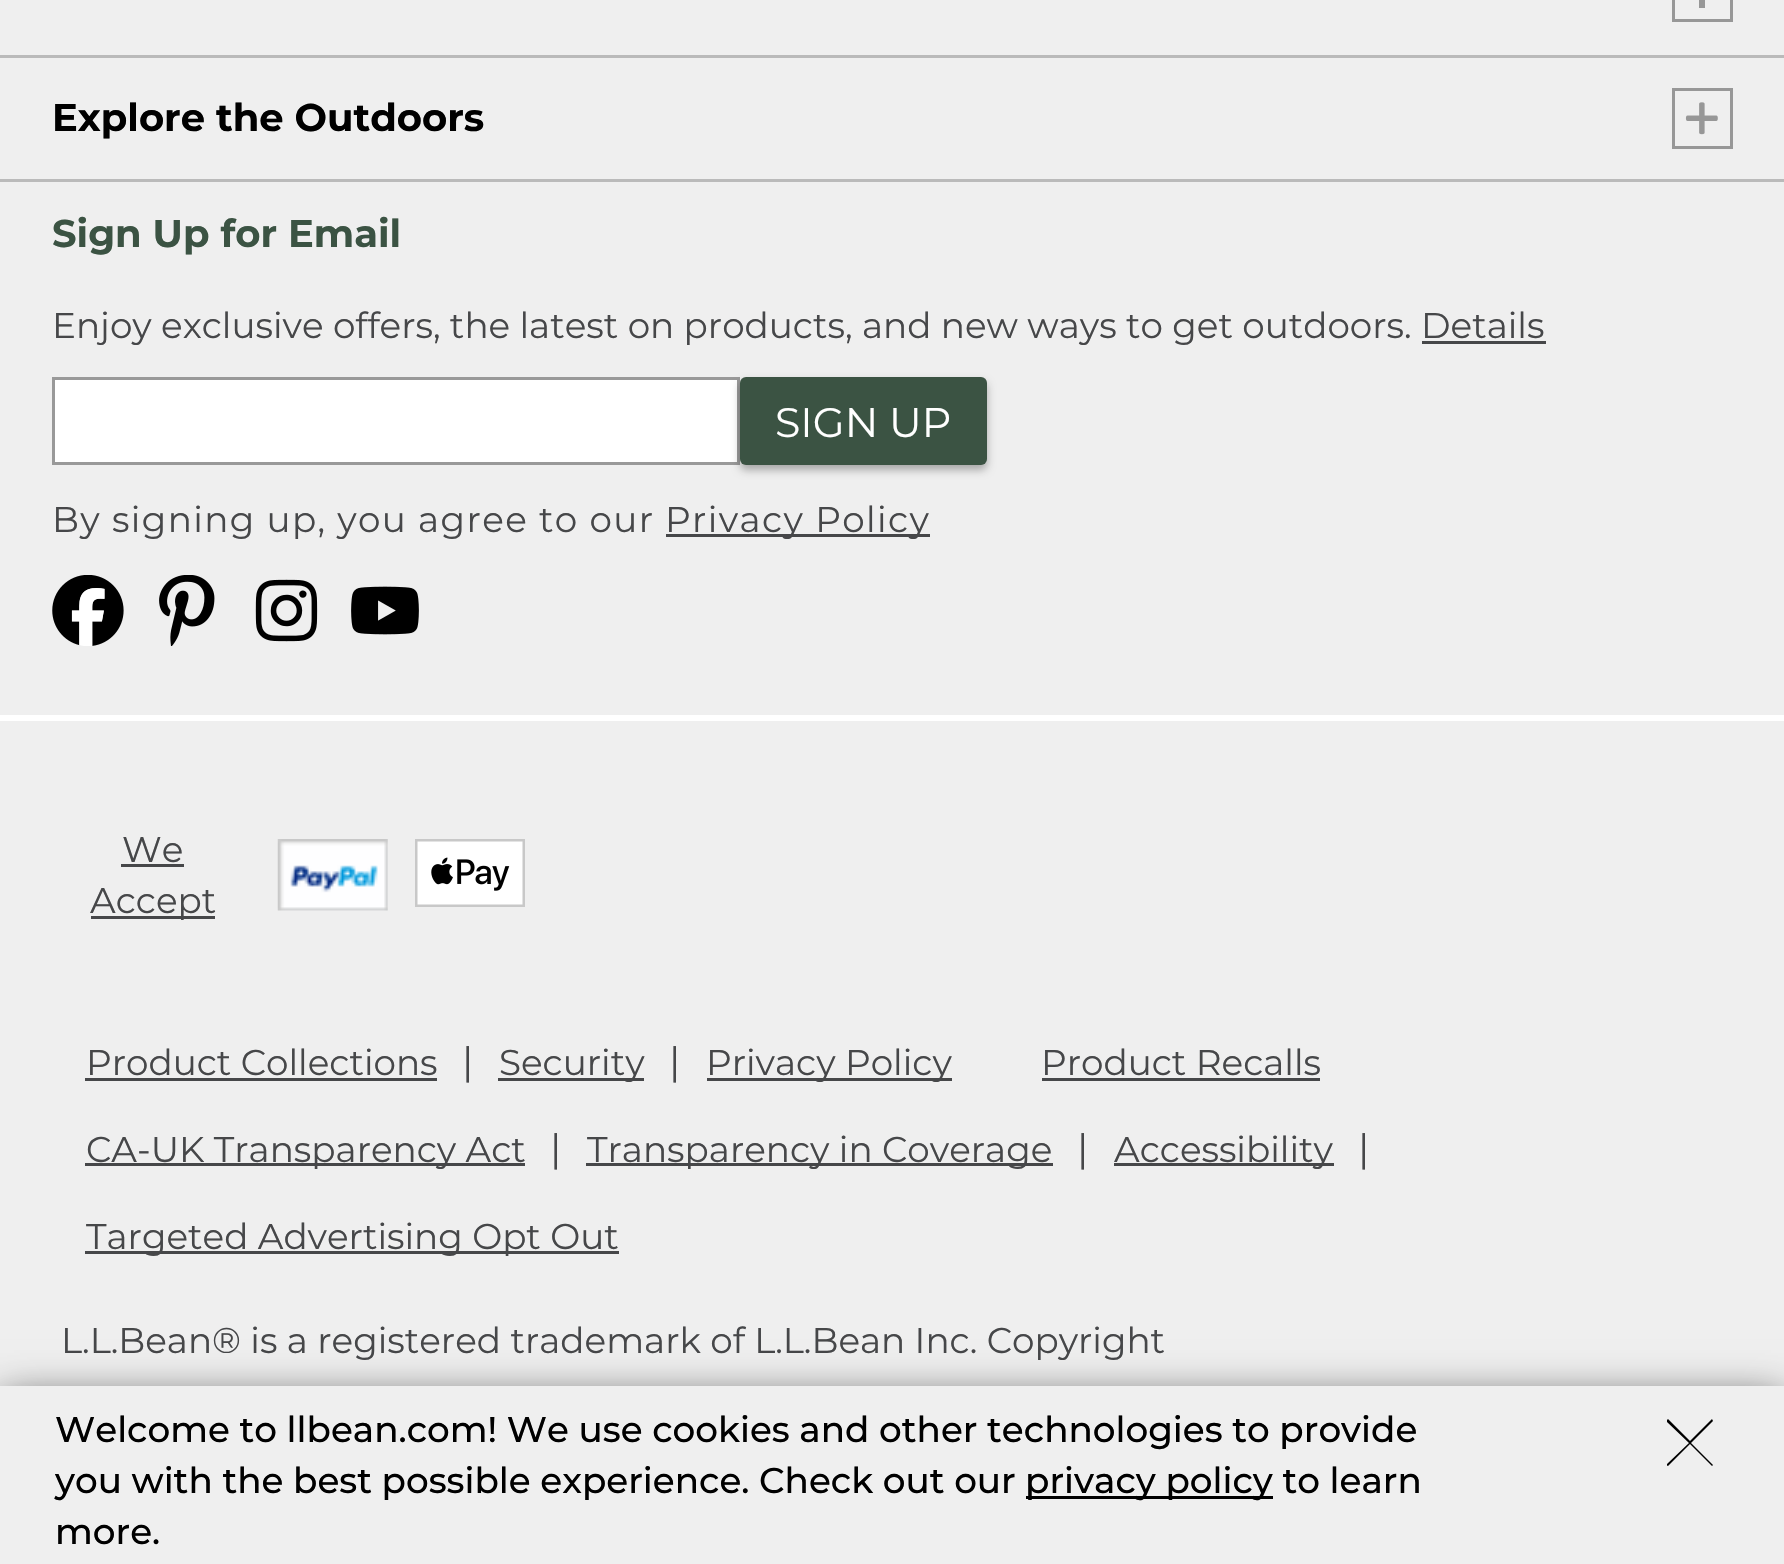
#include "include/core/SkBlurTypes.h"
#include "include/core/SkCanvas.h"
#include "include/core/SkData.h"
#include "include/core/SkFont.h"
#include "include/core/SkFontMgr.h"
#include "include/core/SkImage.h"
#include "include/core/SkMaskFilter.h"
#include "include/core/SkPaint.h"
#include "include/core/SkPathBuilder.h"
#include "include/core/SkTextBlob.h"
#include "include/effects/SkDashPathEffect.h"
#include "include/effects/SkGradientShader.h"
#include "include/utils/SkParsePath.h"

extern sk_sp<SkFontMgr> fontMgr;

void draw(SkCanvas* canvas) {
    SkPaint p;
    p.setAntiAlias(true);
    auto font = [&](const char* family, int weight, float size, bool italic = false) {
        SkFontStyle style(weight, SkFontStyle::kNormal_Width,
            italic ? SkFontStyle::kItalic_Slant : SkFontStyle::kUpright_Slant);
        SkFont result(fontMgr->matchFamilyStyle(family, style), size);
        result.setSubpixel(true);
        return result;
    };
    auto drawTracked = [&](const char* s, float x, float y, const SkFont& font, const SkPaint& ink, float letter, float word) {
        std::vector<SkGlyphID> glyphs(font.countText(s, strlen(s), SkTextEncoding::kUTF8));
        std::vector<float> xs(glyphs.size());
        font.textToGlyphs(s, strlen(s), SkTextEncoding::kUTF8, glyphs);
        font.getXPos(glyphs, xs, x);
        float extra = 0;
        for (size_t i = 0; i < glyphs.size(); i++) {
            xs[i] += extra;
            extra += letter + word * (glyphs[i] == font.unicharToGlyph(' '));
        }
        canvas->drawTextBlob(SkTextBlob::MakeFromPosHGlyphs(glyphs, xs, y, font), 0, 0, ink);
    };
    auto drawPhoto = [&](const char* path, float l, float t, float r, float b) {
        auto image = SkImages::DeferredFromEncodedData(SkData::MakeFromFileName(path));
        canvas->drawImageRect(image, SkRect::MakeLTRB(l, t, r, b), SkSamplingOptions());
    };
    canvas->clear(0xFFEFEFEF);
    p.setStyle(SkPaint::kStroke_Style);
    p.setStrokeWidth(3);
    p.setColor(0xFF979797);
    canvas->drawRect(SkRect::MakeLTRB(1673.5f, -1.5f, 1731.5f, 20.5f), p);
    p.setStyle(SkPaint::kFill_Style);
    {
        const struct { float l, t, r, b; SkColor color; } items[] = {
            {1699, 0, 1705, 8, 0xFF979797},
            {0, 55, 1784, 58, 0xFFBABABA},
            {0, 179, 1784, 182, 0xFFBABABA},
        };
        for (auto [l, t, r, b, color] : items) {
            p.setColor(color);
            canvas->drawRect(SkRect::MakeLTRB(l, t, r, b), p);
        }
    }
    auto font1 = font("Montserrat", 700, 38.5f);
    p.setColor(0xFF000000);
    canvas->drawString("Explore the Outdoors", 52, 131, font1, p);
    p.setStyle(SkPaint::kStroke_Style);
    p.setColor(0xFF979797);
    canvas->drawRect(SkRect::MakeLTRB(1673.5f, 89.5f, 1731.5f, 147.5f), p);
    drawPhoto("media/1.png", 1685, 102, 1718, 135);
    p.setStyle(SkPaint::kFill_Style);
    p.setColor(0xFF3B5343);
    canvas->drawString("Sign Up for Email", 52, 247, font1, p);
    auto font2 = font("Montserrat", 400, 35.75f);
    p.setColor(0xFF464749);
    canvas->drawString("Enjoy exclusive offers, the latest on products, and new ways to get outdoors. Details", 52, 338, font2, p);
    canvas->drawRect(SkRect::MakeLTRB(1422, 341, 1546, 344), p);
    p.setColor(0xFFFFFFFF);
    canvas->drawRect(SkRect::MakeLTRB(53.5f, 378.5f, 738.5f, 463.5f), p);
    p.setStyle(SkPaint::kStroke_Style);
    p.setColor(0xFF999999);
    canvas->drawRect(SkRect::MakeLTRB(53.5f, 378.5f, 738.5f, 463.5f), p);
    p.setStyle(SkPaint::kFill_Style);
    p.setColor(0x4D000000);
    p.setMaskFilter(SkMaskFilter::MakeBlur(kNormal_SkBlurStyle, 4));
    canvas->drawRoundRect(SkRect::MakeLTRB(740, 382, 987, 470), 6, 6, p);
    p.setMaskFilter(nullptr);
    p.setColor(0xFF3B5343);
    canvas->drawRoundRect(SkRect::MakeLTRB(740, 377, 987, 465), 6, 6, p);
    auto font3 = font("Montserrat", 400, 41.25f);
    p.setColor(0xFFFFFFFF);
    canvas->drawString("SIGN UP", 775, 437, font3, p);
    p.setColor(0xFF464749);
    drawTracked("By signing up, you agree to our", 52, 532, font2, p, 1.4f, 0);
    canvas->drawRect(SkRect::MakeLTRB(666, 534, 930, 537), p);
    drawTracked("Privacy Policy", 665, 532, font2, p, 1.4f, 0);
    drawPhoto("media/2.png", 52, 575, 124, 646);
    drawPhoto("media/3.png", 159, 575, 215, 646);
    drawPhoto("media/4.png", 255, 579, 318, 642);
    drawPhoto("media/5.png", 351, 586, 419, 635);
    p.setColor(0xFFFFFFFF);
    canvas->drawRect(SkRect::MakeLTRB(0, 715, 1784, 721), p);
    p.setColor(0xFF464749);
    canvas->drawString("We", 122, 862, font2, p);
    canvas->drawRect(SkRect::MakeLTRB(121, 864, 184, 867), p);
    canvas->drawRect(SkRect::MakeLTRB(91, 916, 215, 919), p);
    canvas->drawString("Accept", 90, 913, font2, p);
    drawPhoto("media/6.png", 277, 839, 388, 911);
    drawPhoto("media/7.png", 415, 839, 525, 907);
    canvas->drawString("Product Collections", 86, 1075, font2, p);
    canvas->drawRect(SkRect::MakeLTRB(85, 1078, 437, 1081), p);
    auto font4 = font("Montserrat", 400, 39);
    canvas->drawString("|", 462, 1075, font4, p);
    canvas->drawRect(SkRect::MakeLTRB(498, 1078, 644, 1081), p);
    canvas->drawString("Security", 499, 1075, font2, p);
    canvas->drawString("|", 669, 1075, font4, p);
    canvas->drawRect(SkRect::MakeLTRB(707, 1078, 952, 1081), p);
    canvas->drawString("Privacy Policy", 706, 1075, font2, p);
    canvas->drawString("Product Recalls", 1041, 1075, font2, p);
    canvas->drawRect(SkRect::MakeLTRB(1042, 1078, 1320, 1081), p);
    canvas->drawRect(SkRect::MakeLTRB(85, 1163, 525, 1166), p);
    canvas->drawString("CA-UK Transparency Act", 86, 1162, font2, p);
    canvas->drawString("|", 550, 1162, font4, p);
    canvas->drawRect(SkRect::MakeLTRB(586, 1163, 1053, 1166), p);
    canvas->drawString("Transparency in Coverage", 587, 1162, font2, p);
    canvas->drawString("|", 1077, 1162, font4, p);
    canvas->drawRect(SkRect::MakeLTRB(1114, 1163, 1334, 1166), p);
    canvas->drawString("Accessibility", 1114, 1162, font2, p);
    canvas->drawString("|", 1358, 1162, font4, p);
    canvas->drawRect(SkRect::MakeLTRB(85, 1251, 619, 1254), p);
    canvas->drawString("Targeted Advertising Opt Out", 86, 1249, font2, p);
    canvas->drawString("L.L.Bean® is a registered trademark of L.L.Bean Inc. Copyright", 61, 1353, font2, p);
    p.setColor(0xBF000000);
    p.setMaskFilter(SkMaskFilter::MakeBlur(kNormal_SkBlurStyle, 20.5f));
    canvas->drawRect(SkRect::MakeLTRB(0, 1400, 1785, 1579), p);
    p.setMaskFilter(nullptr);
    p.setColor(0xFFEFEFEF);
    canvas->drawRect(SkRect::MakeLTRB(0, 1386, 1784, 1564), p);
    auto font5 = font("Montserrat", 500, 35.75f);
    p.setColor(0xFF000000);
    canvas->drawString("Welcome to llbean.com! We use cookies and other technologies to provide", 55, 1442, font5, p);
    canvas->drawString("you with the best possible experience. Check out our", 55, 1493, font5, p);
    canvas->drawRect(SkRect::MakeLTRB(1026, 1496, 1273, 1499), p);
    canvas->drawString("privacy policy to learn", 1025, 1493, font5, p);
    canvas->drawString("more.", 55, 1544, font5, p);
    canvas->save();
    canvas->clipRect(SkRect::MakeLTRB(1667, 1419, 1713, 1466));
    canvas->drawPath(SkPathBuilder().moveTo(1713, 1421).lineTo(1712, 1419).lineTo(1690, 1441).lineTo(1668, 1419).lineTo(1666, 1421).lineTo(1689, 1443).lineTo(1666, 1465).lineTo(1668, 1466).lineTo(1690, 1444).lineTo(1712, 1466).lineTo(1713, 1465).lineTo(1691, 1443).lineTo(1713, 1421).detach(), p);
    canvas->restore();
}
